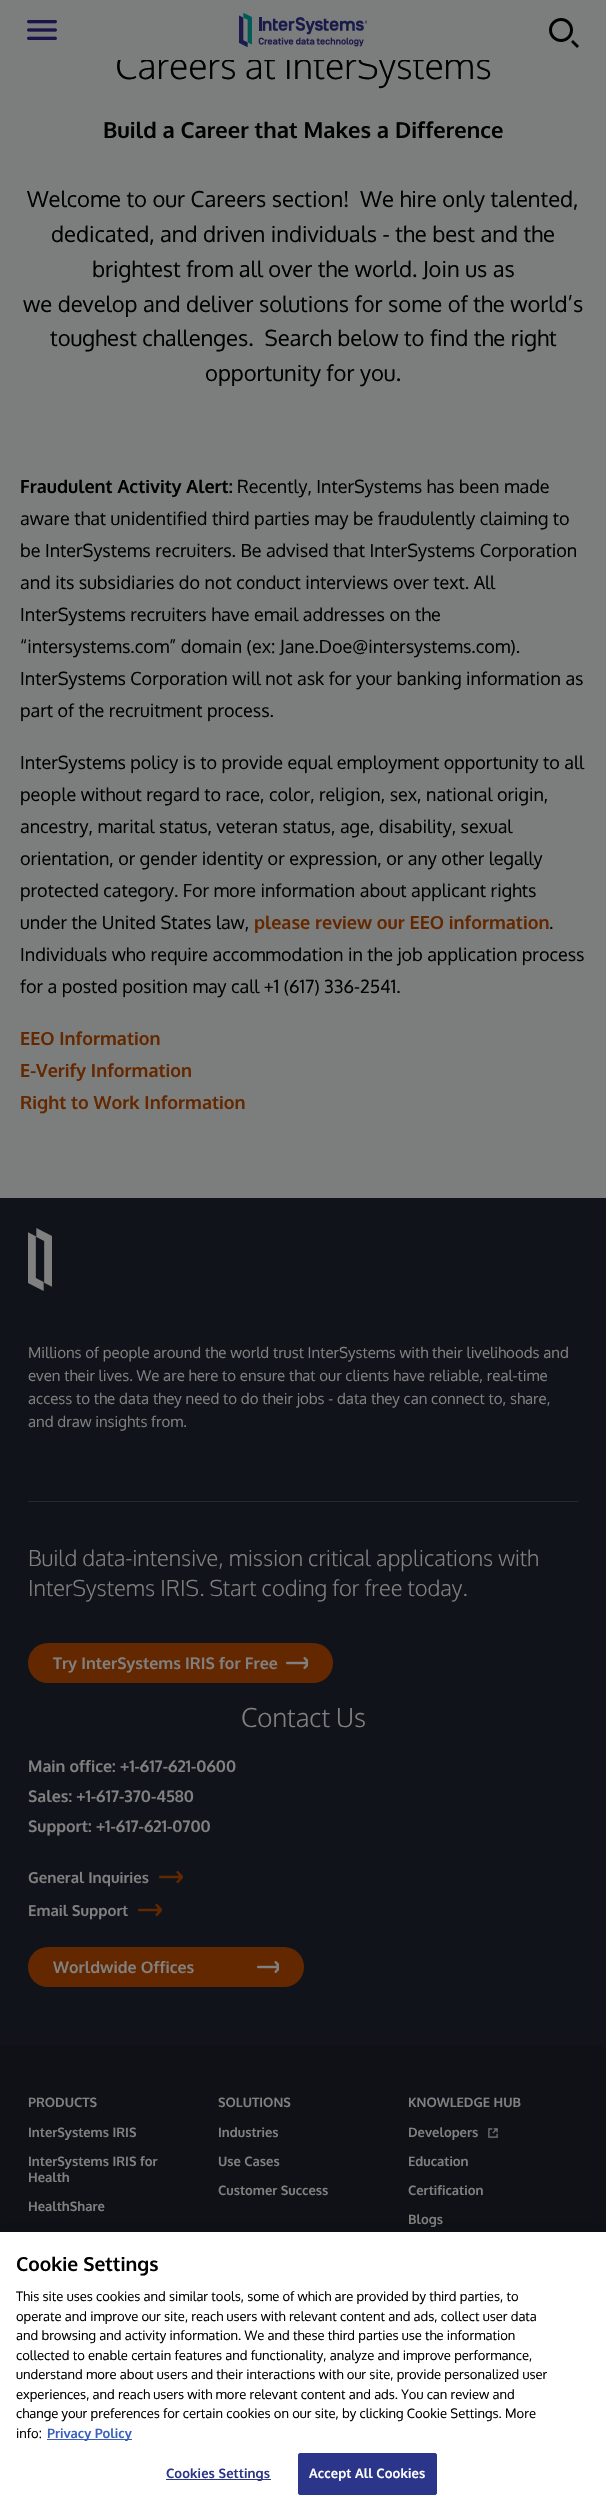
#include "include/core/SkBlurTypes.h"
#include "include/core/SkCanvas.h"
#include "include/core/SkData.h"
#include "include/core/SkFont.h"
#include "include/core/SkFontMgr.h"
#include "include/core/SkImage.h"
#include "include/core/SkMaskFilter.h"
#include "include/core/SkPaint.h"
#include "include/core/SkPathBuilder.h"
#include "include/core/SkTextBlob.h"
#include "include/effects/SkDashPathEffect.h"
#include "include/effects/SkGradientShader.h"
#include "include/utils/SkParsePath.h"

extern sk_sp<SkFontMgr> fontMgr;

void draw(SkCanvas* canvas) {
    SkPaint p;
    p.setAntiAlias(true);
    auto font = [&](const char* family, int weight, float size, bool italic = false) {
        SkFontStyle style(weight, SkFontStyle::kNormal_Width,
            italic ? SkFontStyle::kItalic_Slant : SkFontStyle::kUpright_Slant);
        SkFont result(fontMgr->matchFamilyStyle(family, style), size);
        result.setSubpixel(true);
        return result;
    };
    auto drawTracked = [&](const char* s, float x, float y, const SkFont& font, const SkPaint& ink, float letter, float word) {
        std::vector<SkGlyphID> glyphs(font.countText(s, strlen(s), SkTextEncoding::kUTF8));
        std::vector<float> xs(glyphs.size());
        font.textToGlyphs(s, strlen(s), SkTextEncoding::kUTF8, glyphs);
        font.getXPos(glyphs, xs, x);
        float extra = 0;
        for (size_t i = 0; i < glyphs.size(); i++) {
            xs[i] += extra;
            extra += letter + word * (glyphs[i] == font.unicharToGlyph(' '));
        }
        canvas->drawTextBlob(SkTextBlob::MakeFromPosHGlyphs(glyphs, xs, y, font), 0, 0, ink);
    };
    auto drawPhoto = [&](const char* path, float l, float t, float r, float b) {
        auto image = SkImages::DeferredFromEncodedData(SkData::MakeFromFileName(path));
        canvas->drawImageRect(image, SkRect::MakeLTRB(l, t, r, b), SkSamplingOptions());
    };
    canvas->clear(0xFF7C7D7D);
    auto font1 = font("Oxygen", 300, 36);
    p.setColor(0xFF000000);
    canvas->drawString("Careers at InterSystems", 115, 79, font1, p);
    p.setColor(0xFF7C7D7D);
    canvas->drawRect(SkRect::MakeLTRB(117, 52, 488, 60), p);
    drawPhoto("media/1.png", 27, 20, 57, 40);
    drawPhoto("media/2.png", 239, 12, 367, 48);
    drawPhoto("media/3.png", 549, 18, 579, 48);
    auto font2 = font("Oxygen", 700, 22);
    p.setColor(0xFF000000);
    canvas->drawString("Build a Career that Makes a Difference", 103, 138, font2, p);
    auto font3 = font("Oxygen", 400, 22);
    {
        const struct { const char* s; float x, y; } items[] = {
            {"Welcome to our Careers section!  We hire only talented,", 27, 207},
            {"dedicated, and driven individuals - the best and the", 51, 242},
            {"brightest from all over the world. Join us as", 92, 277},
            {"we develop and deliver solutions for some of the world’s", 23, 312},
            {"toughest challenges.  Search below to find the right", 50, 346},
            {"opportunity for you.", 205, 381},
        };
        for (auto [s, x, y] : items) {
            canvas->drawString(s, x, y, font3, p);
        }
    }
    auto font4 = font("Oxygen", 700, 18);
    canvas->drawString("Fraudulent Activity Alert:", 20, 493, font4, p);
    auto font5 = font("Oxygen", 400, 18);
    {
        const struct { const char* s; float x, y; } items[] = {
            {"Recently, InterSystems has been made", 237, 493},
            {"aware that unidentified third parties may be fraudulently claiming to", 20, 525},
            {"be InterSystems recruiters. Be advised that InterSystems Corporation", 20, 557},
            {"and its subsidiaries do not conduct interviews over text. All", 20, 589},
            {"InterSystems recruiters have email addresses on the", 20, 621},
            {"“intersystems.com” domain (ex: Jane.Doe@intersystems.com).", 20, 653},
            {"InterSystems Corporation will not ask for your banking information as", 20, 685},
            {"part of the recruitment process.", 20, 717},
            {"InterSystems policy is to provide equal employment opportunity to all", 20, 769},
            {"people without regard to race, color, religion, sex, national origin,", 20, 801},
            {"ancestry, marital status, veteran status, age, disability, sexual", 20, 833},
            {"orientation, or gender identity or expression, or any other legally", 20, 865},
            {"protected category. For more information about applicant rights", 20, 897},
            {"under the United States law,", 20, 929},
        };
        for (auto [s, x, y] : items) {
            canvas->drawString(s, x, y, font5, p);
        }
    }
    p.setColor(0xFF642800);
    canvas->drawString("please review our EEO information", 254, 929, font4, p);
    p.setColor(0xFF000000);
    {
        const struct { const char* s; float x, y; } items[] = {
            {".", 549, 929},
            {"Individuals who require accommodation in the job application process", 20, 961},
            {"for a posted position may call +1 (617) 336-2541.", 20, 993},
        };
        for (auto [s, x, y] : items) {
            canvas->drawString(s, x, y, font5, p);
        }
    }
    p.setColor(0xFF642800);
    {
        const struct { const char* s; float x, y; } items[] = {
            {"EEO Information", 20, 1045},
            {"E-Verify Information", 20, 1077},
            {"Right to Work Information", 20, 1109},
        };
        for (auto [s, x, y] : items) {
            canvas->drawString(s, x, y, font4, p);
        }
    }
    p.setColor(0xFF11131A);
    canvas->drawRect(SkRect::MakeLTRB(0, 1198, 606, 2045), p);
    drawPhoto("media/4.png", 28, 1228, 52, 1291);
    auto font6 = font("Oxygen", 400, 15);
    p.setColor(0xFF808080);
    {
        const struct { const char* s; float x, y; } items[] = {
            {"Millions of people around the world trust InterSystems with their livelihoods and", 28, 1358},
            {"even their lives. We are here to ensure that our clients have reliable, real-time", 28, 1381},
            {"access to the data they need to do their jobs - data they can connect to, share,", 28, 1404},
            {"and draw insights from.", 28, 1427},
        };
        for (auto [s, x, y] : items) {
            canvas->drawString(s, x, y, font6, p);
        }
    }
    p.setColor(0xFF27292E);
    canvas->drawRect(SkRect::MakeLTRB(28, 1501, 578, 1502), p);
    auto font7 = font("Oxygen", 300, 22);
    p.setColor(0xFF808080);
    canvas->drawString("Build data-intensive, mission critical applications with", 28, 1566, font7, p);
    canvas->drawString("InterSystems IRIS. Start coding for free today.", 28, 1596, font7, p);
    p.setColor(0xFF642800);
    canvas->drawRoundRect(SkRect::MakeLTRB(28, 1643, 333, 1683), 20, 20, p);
    auto font8 = font("Oxygen", 700, 16);
    p.setColor(0xFF808080);
    canvas->drawString("Try InterSystems IRIS for Free", 53, 1669, font8, p);
    drawPhoto("media/5.png", 286, 1657, 308, 1669);
    auto font9 = font("Oxygen", 300, 26);
    canvas->drawString("Contact Us", 241, 1727, font9, p);
    {
        const struct { const char* s; float x, y; } items[] = {
            {"Main office: +1-617-621-0600", 28, 1772},
            {"Sales: +1-617-370-4580", 28, 1802},
            {"Support: +1-617-621-0700", 28, 1832},
        };
        for (auto [s, x, y] : items) {
            canvas->drawString(s, x, y, font8, p);
        }
    }
    auto font10 = font("Oxygen", 700, 15);
    canvas->drawString("General Inquiries", 28, 1883, font10, p);
    drawPhoto("media/6.png", 159, 1871, 183, 1883);
    canvas->drawString("Email Support", 28, 1916, font10, p);
    drawPhoto("media/6.png", 138, 1904, 162, 1916);
    p.setColor(0xFF642800);
    canvas->drawRoundRect(SkRect::MakeLTRB(28, 1947, 304, 1987), 20, 20, p);
    p.setColor(0xFF808080);
    canvas->drawString("Worldwide Offices", 53, 1973, font8, p);
    drawPhoto("media/5.png", 257, 1961, 279, 1973);
    p.setColor(0xFF101117);
    canvas->drawRect(SkRect::MakeLTRB(0, 2045, 606, 2232), p);
    auto font11 = font("Oxygen", 700, 13);
    p.setColor(0xFF808080);
    {
        const struct { const char* s; float x, y; } items[] = {
            {"PRODUCTS", 28, 2107},
            {"InterSystems IRIS", 28, 2137},
            {"InterSystems IRIS for", 28, 2166},
            {"Health", 28, 2182},
            {"HealthShare", 28, 2211},
            {"SOLUTIONS", 218, 2107},
            {"Industries", 218, 2137},
            {"Use Cases", 218, 2166},
            {"Customer Success", 218, 2195},
            {"KNOWLEDGE HUB", 408, 2107},
            {"Developers", 408, 2137},
        };
        for (auto [s, x, y] : items) {
            canvas->drawString(s, x, y, font11, p);
        }
    }
    drawPhoto("media/7.png", 488, 2128, 498, 2138);
    {
        const struct { const char* s; float x, y; } items[] = {
            {"Education", 408, 2166},
            {"Certification", 408, 2195},
            {"Blogs", 408, 2224},
        };
        for (auto [s, x, y] : items) {
            canvas->drawString(s, x, y, font11, p);
        }
    }
    p.setColor(0x33000000);
    p.setMaskFilter(SkMaskFilter::MakeBlur(kNormal_SkBlurStyle, 9));
    canvas->drawRect(SkRect::MakeLTRB(0, 2232, 606, 2505), p);
    p.setMaskFilter(nullptr);
    p.setColor(0xFFFFFFFF);
    canvas->drawRect(SkRect::MakeLTRB(0, 2232, 606, 2505), p);
    auto font12 = font("Oxygen", 700, 19.25f);
    p.setColor(0xFF000000);
    canvas->drawString("Cookie Settings", 16, 2271, font12, p);
    auto font13 = font("Oxygen", 400, 13);
    {
        const struct { const char* s; float x, y; } items[] = {
            {"This site uses cookies and similar tools, some of which are provided by third parties, to", 16, 2301},
            {"operate and improve our site, reach users with relevant content and ads, collect user data", 16, 2321},
            {"and browsing and activity information. We and these third parties use the information", 16, 2340},
            {"collected to enable certain features and functionality, analyze and improve performance,", 16, 2360},
            {"understand more about users and their interactions with our site, provide personalized user", 16, 2379},
            {"experiences, and reach users with more relevant content and ads. You can review and", 16, 2399},
            {"change your preferences for certain cookies on our site, by clicking Cookie Settings.", 16, 2418},
            {"More", 505, 2418},
            {"info:", 16, 2438},
        };
        for (auto [s, x, y] : items) {
            canvas->drawString(s, x, y, font13, p);
        }
    }
    p.setColor(0xFF3860BE);
    canvas->drawRect(SkRect::MakeLTRB(47, 2439, 132, 2440), p);
    canvas->drawString("Privacy Policy", 47, 2438, font11, p);
    p.setColor(0xFF2B3589);
    canvas->drawRect(SkRect::MakeLTRB(166, 2479, 271, 2480), p);
    drawTracked("Cookies Settings", 166, 2478, font11, p, 0.1f, 0);
    canvas->drawRoundRect(SkRect::MakeLTRB(298.5f, 2453.5f, 436.5f, 2494.5f), 1.5f, 1.5f, p);
    p.setStyle(SkPaint::kStroke_Style);
    p.setStrokeWidth(1);
    canvas->drawRoundRect(SkRect::MakeLTRB(298.5f, 2453.5f, 436.5f, 2494.5f), 1.5f, 1.5f, p);
    p.setStyle(SkPaint::kFill_Style);
    p.setColor(0xFFFFFFFF);
    drawTracked("Accept All Cookies", 309, 2478, font11, p, 0.1f, 0);
}
